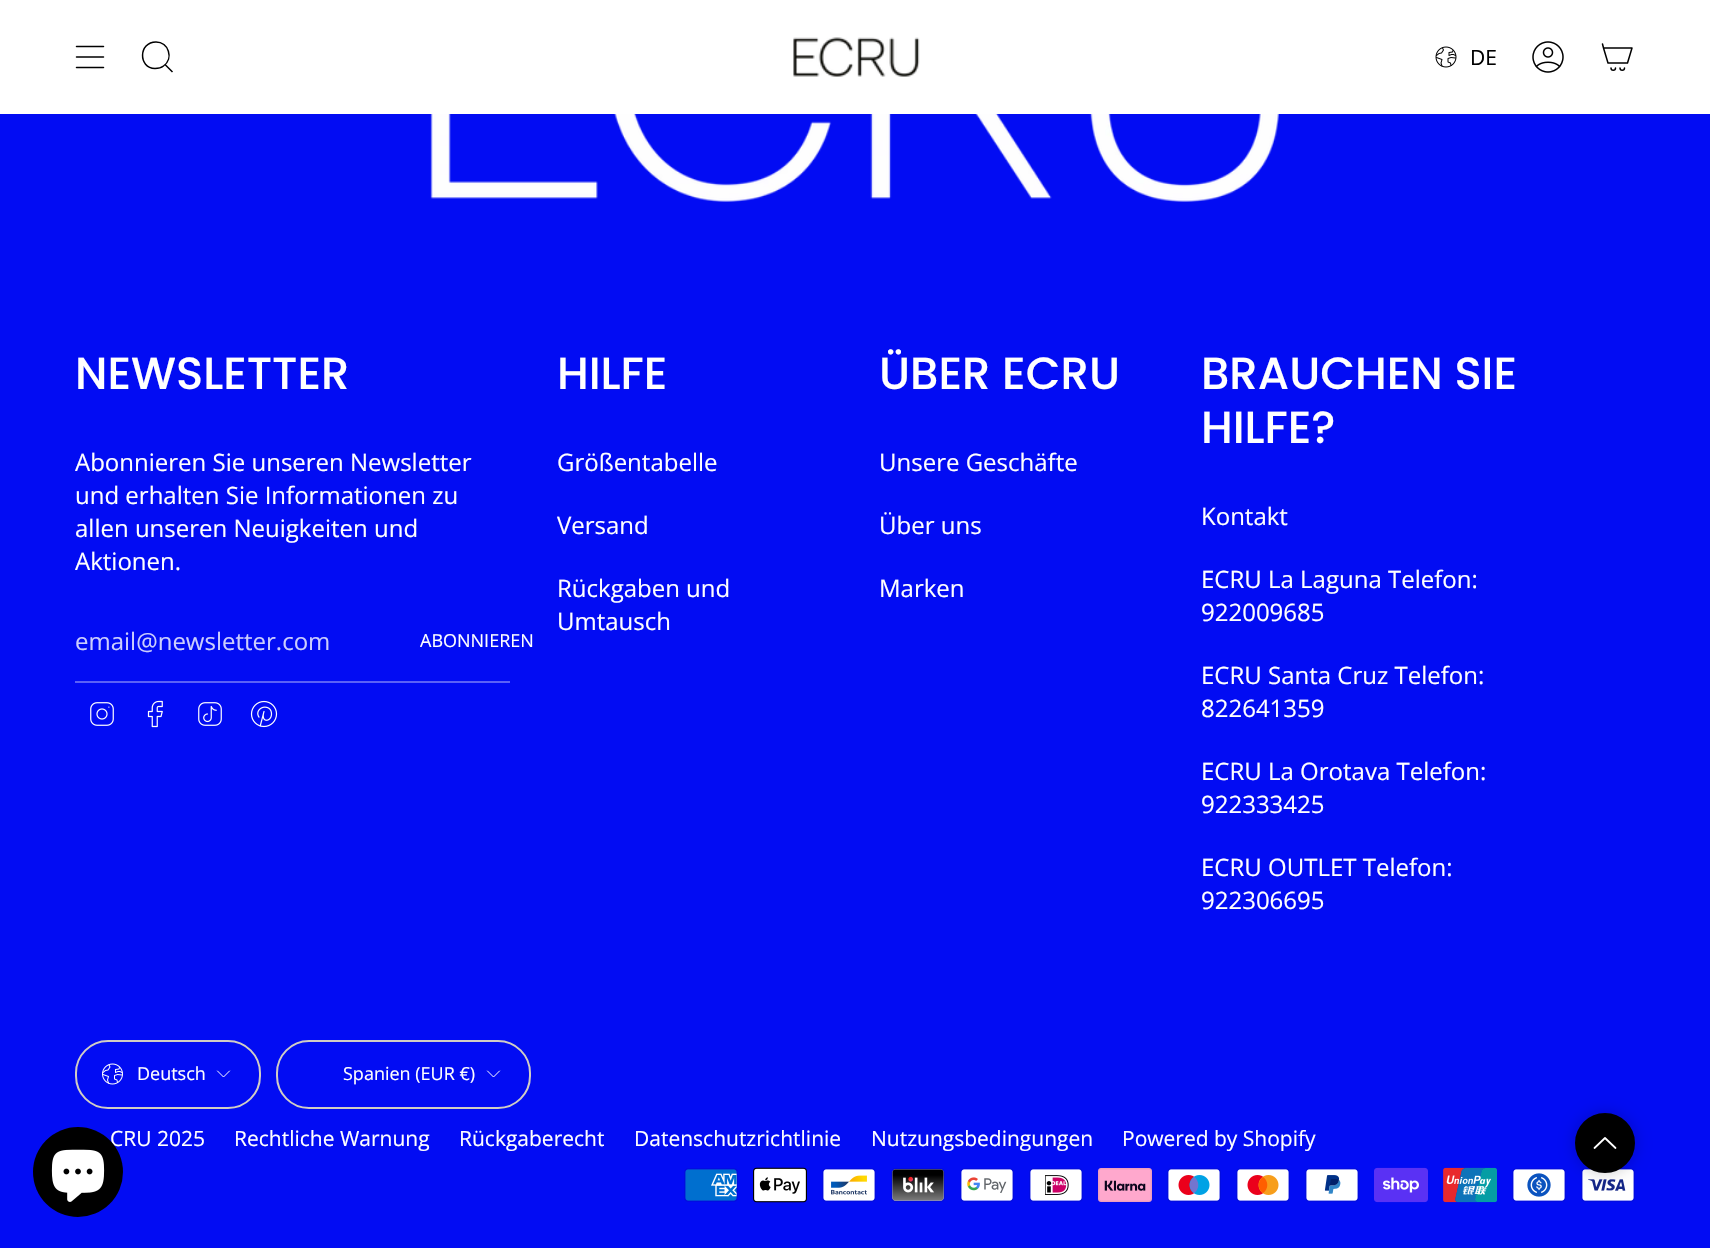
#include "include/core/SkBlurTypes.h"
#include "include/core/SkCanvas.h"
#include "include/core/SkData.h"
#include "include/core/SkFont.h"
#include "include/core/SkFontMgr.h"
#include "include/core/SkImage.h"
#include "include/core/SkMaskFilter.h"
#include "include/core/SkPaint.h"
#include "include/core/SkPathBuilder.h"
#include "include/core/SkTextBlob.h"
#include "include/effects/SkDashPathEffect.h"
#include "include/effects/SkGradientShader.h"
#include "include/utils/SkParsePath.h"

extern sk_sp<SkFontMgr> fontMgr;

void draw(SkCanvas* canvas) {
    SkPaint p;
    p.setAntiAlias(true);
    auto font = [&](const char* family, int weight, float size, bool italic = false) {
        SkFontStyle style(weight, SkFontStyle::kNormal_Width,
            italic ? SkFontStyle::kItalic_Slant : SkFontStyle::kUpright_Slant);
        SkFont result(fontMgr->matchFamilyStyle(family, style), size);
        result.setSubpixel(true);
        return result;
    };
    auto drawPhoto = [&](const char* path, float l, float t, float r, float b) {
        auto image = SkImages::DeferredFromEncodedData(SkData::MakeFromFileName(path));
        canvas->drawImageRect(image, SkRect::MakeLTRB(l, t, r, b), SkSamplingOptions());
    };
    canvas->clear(0xFF020CF3);
    p.setColor(0xFFFFFFFF);
    canvas->drawRect(SkRect::MakeLTRB(0, 0, 1710, 114), p);
    p.setStyle(SkPaint::kStroke_Style);
    p.setStrokeWidth(1.5f);
    p.setStrokeCap(SkPaint::kRound_Cap);
    p.setStrokeJoin(SkPaint::kRound_Join);
    p.setColor(0xFF000000);
    canvas->drawPath(SkPathBuilder().moveTo(76.5f, 46.5f).lineTo(103.5f, 46.5f).moveTo(76.5f, 57).lineTo(103.5f, 57).moveTo(76.5f, 67.5f).lineTo(103.5f, 67.5f).detach(), p);
    p.setStrokeCap(SkPaint::kButt_Cap);
    p.setStrokeJoin(SkPaint::kMiter_Join);
    canvas->drawPath(SkPathBuilder().moveTo(156, 42).cubicTo(168.5f, 42, 174, 58.5f, 163.5f, 66).cubicTo(161, 68, 158, 68.5f, 155, 68.5f).cubicTo(138, 68, 138.5f, 42, 156, 42).close().moveTo(165, 64.5f).lineTo(172.5f, 72).detach(), p);
    drawPhoto("media/1.png", 793, 37, 920, 77);
    drawPhoto("media/2.png", 1435, 46, 1457, 68);
    auto font1 = font("Open Sans", 400, 21);
    p.setStyle(SkPaint::kFill_Style);
    canvas->drawString("DE", 1470, 65, font1, p);
    drawPhoto("media/3.png", 1532, 41, 1564, 73);
    p.setStyle(SkPaint::kStroke_Style);
    p.setStrokeCap(SkPaint::kRound_Cap);
    p.setStrokeJoin(SkPaint::kRound_Join);
    canvas->drawPath(SkPathBuilder().moveTo(1603.5f, 48).lineTo(1632, 48).lineTo(1627.5f, 63).lineTo(1608, 63).close().moveTo(1603.5f, 48).lineTo(1602.5f, 44).moveTo(1615.5f, 68).cubicTo(1615.5f, 71, 1611, 71, 1611, 68).moveTo(1624.5f, 68).cubicTo(1624.5f, 71, 1620, 71, 1620, 68).detach(), p);
    drawPhoto("media/4.png", 430, 114, 1279, 202);
    auto font2 = font("Poppins", 500, 45);
    p.setStyle(SkPaint::kFill_Style);
    p.setColor(0xFFFFFFFF);
    canvas->drawString("NEWSLETTER", 75, 389, font2, p);
    auto font3 = font("Open Sans", 400, 24);
    {
        const struct { const char* s; float x, y; } items[] = {
            {"Abonnieren Sie unseren Newsletter", 75, 471},
            {"und erhalten Sie Informationen zu", 75, 504},
            {"allen unseren Neuigkeiten und", 75, 537},
            {"Aktionen.", 75, 570},
        };
        for (auto [s, x, y] : items) {
            canvas->drawString(s, x, y, font3, p);
        }
    }
    p.setColor(0xFF5B61F7);
    canvas->drawRect(SkRect::MakeLTRB(75, 681, 510, 683), p);
    p.setColor(0xFFCCCEFD);
    canvas->drawString("email@newsletter.com", 75, 650, font3, p);
    auto font4 = font("Open Sans", 400, 18);
    p.setColor(0xFFFFFFFF);
    canvas->drawString("ABONNIEREN", 420, 647, font4, p);
    drawPhoto("media/5.png", 90, 702, 114, 726);
    drawPhoto("media/6.png", 147, 700, 163, 728);
    drawPhoto("media/7.png", 198, 702, 222, 726);
    drawPhoto("media/8.png", 250, 700, 278, 728);
    canvas->drawString("HILFE", 557, 389, font2, p);
    {
        const struct { const char* s; float x, y; } items[] = {
            {"Größentabelle", 557, 471},
            {"Versand", 557, 534},
            {"Rückgaben und", 557, 597},
            {"Umtausch", 557, 630},
        };
        for (auto [s, x, y] : items) {
            canvas->drawString(s, x, y, font3, p);
        }
    }
    canvas->drawString("ÜBER ECRU", 879, 389, font2, p);
    {
        const struct { const char* s; float x, y; } items[] = {
            {"Unsere Geschäfte", 879, 471},
            {"Über uns", 879, 534},
            {"Marken", 879, 597},
        };
        for (auto [s, x, y] : items) {
            canvas->drawString(s, x, y, font3, p);
        }
    }
    canvas->drawString("BRAUCHEN SIE", 1201, 389, font2, p);
    canvas->drawString("HILFE?", 1201, 443, font2, p);
    {
        const struct { const char* s; float x, y; } items[] = {
            {"Kontakt", 1201, 525},
            {"ECRU La Laguna Telefon:", 1201, 588},
            {"922009685", 1201, 621},
            {"ECRU Santa Cruz Telefon:", 1201, 684},
            {"822641359", 1201, 717},
            {"ECRU La Orotava Telefon:", 1201, 780},
            {"922333425", 1201, 813},
            {"ECRU OUTLET Telefon:", 1201, 876},
            {"922306695", 1201, 909},
        };
        for (auto [s, x, y] : items) {
            canvas->drawString(s, x, y, font3, p);
        }
    }
    p.setStyle(SkPaint::kStroke_Style);
    p.setStrokeWidth(2);
    p.setStrokeCap(SkPaint::kButt_Cap);
    p.setStrokeJoin(SkPaint::kMiter_Join);
    p.setColor(0xFFD1CDC4);
    canvas->drawRoundRect(SkRect::MakeLTRB(76, 1041, 260, 1108), 32, 32, p);
    drawPhoto("media/9.png", 102, 1063, 123, 1085);
    p.setStyle(SkPaint::kFill_Style);
    p.setColor(0xFFFFFFFF);
    canvas->drawString("Deutsch", 137, 1080, font4, p);
    p.setStyle(SkPaint::kStroke_Style);
    p.setStrokeWidth(1);
    p.setStrokeCap(SkPaint::kRound_Cap);
    p.setStrokeJoin(SkPaint::kRound_Join);
    canvas->drawPath(SkPathBuilder().moveTo(217.5f, 1071).lineTo(223.5f, 1077).lineTo(229.5f, 1071).detach(), p);
    p.setStrokeWidth(2);
    p.setStrokeCap(SkPaint::kButt_Cap);
    p.setStrokeJoin(SkPaint::kMiter_Join);
    p.setColor(0xFFD1CDC4);
    canvas->drawRoundRect(SkRect::MakeLTRB(277, 1041, 530, 1108), 32, 32, p);
    p.setStyle(SkPaint::kFill_Style);
    p.setColor(0xFFFFFFFF);
    canvas->drawString("Spanien (EUR €)", 343, 1080, font4, p);
    p.setStyle(SkPaint::kStroke_Style);
    p.setStrokeWidth(1);
    p.setStrokeCap(SkPaint::kRound_Cap);
    p.setStrokeJoin(SkPaint::kRound_Join);
    canvas->drawPath(SkPathBuilder().moveTo(487.5f, 1071).lineTo(493.5f, 1077).lineTo(499.5f, 1071).detach(), p);
    p.setStyle(SkPaint::kFill_Style);
    {
        const struct { const char* s; float x, y; } items[] = {
            {"CRU 2025", 110, 1146},
            {"Rechtliche Warnung", 234, 1146},
            {"Rückgaberecht", 459, 1146},
            {"Datenschutzrichtlinie", 634, 1146},
            {"Nutzungsbedingungen", 871, 1146},
            {"Powered by Shopify", 1122, 1146},
        };
        for (auto [s, x, y] : items) {
            canvas->drawString(s, x, y, font1, p);
        }
    }
    drawPhoto("media/10.png", 684, 1168, 738, 1202);
    drawPhoto("media/11.png", 753, 1167, 807, 1203);
    drawPhoto("media/12.png", 822, 1168, 876, 1202);
    drawPhoto("media/13.png", 891, 1168, 945, 1202);
    drawPhoto("media/14.png", 960, 1168, 1014, 1202);
    drawPhoto("media/15.png", 1029, 1168, 1083, 1202);
    drawPhoto("media/16.png", 1098, 1168, 1152, 1202);
    drawPhoto("media/17.png", 1167, 1168, 1221, 1202);
    drawPhoto("media/18.png", 1236, 1168, 1290, 1202);
    drawPhoto("media/19.png", 1305, 1168, 1359, 1202);
    drawPhoto("media/20.png", 1374, 1167, 1428, 1203);
    drawPhoto("media/21.png", 1443, 1167, 1497, 1203);
    drawPhoto("media/22.png", 1512, 1168, 1566, 1202);
    drawPhoto("media/23.png", 1581, 1168, 1635, 1202);
    p.setColor(0x33000000);
    p.setMaskFilter(SkMaskFilter::MakeBlur(kNormal_SkBlurStyle, 7.5f));
    canvas->drawRoundRect(SkRect::MakeLTRB(1575, 1113, 1635, 1173), 30, 30, p);
    p.setMaskFilter(nullptr);
    p.setColor(0xFF000000);
    canvas->drawCircle(1605, 1143, 29, p);
    p.setStyle(SkPaint::kStroke_Style);
    p.setStrokeWidth(2);
    p.setStrokeCap(SkPaint::kButt_Cap);
    p.setStrokeJoin(SkPaint::kMiter_Join);
    canvas->drawCircle(1605, 1143, 29, p);
    p.setStrokeWidth(1.8f);
    p.setStrokeCap(SkPaint::kRound_Cap);
    p.setStrokeJoin(SkPaint::kRound_Join);
    p.setColor(0xFFFFFFFF);
    canvas->drawPath(SkPathBuilder().moveTo(1594.5f, 1148).lineTo(1605, 1138).lineTo(1615.5f, 1148).detach(), p);
    p.setStyle(SkPaint::kFill_Style);
    p.setColor(0xFF000000);
    canvas->drawCircle(78, 1172, 45, p);
    drawPhoto("media/24.png", 51, 1149, 105, 1202);
}
